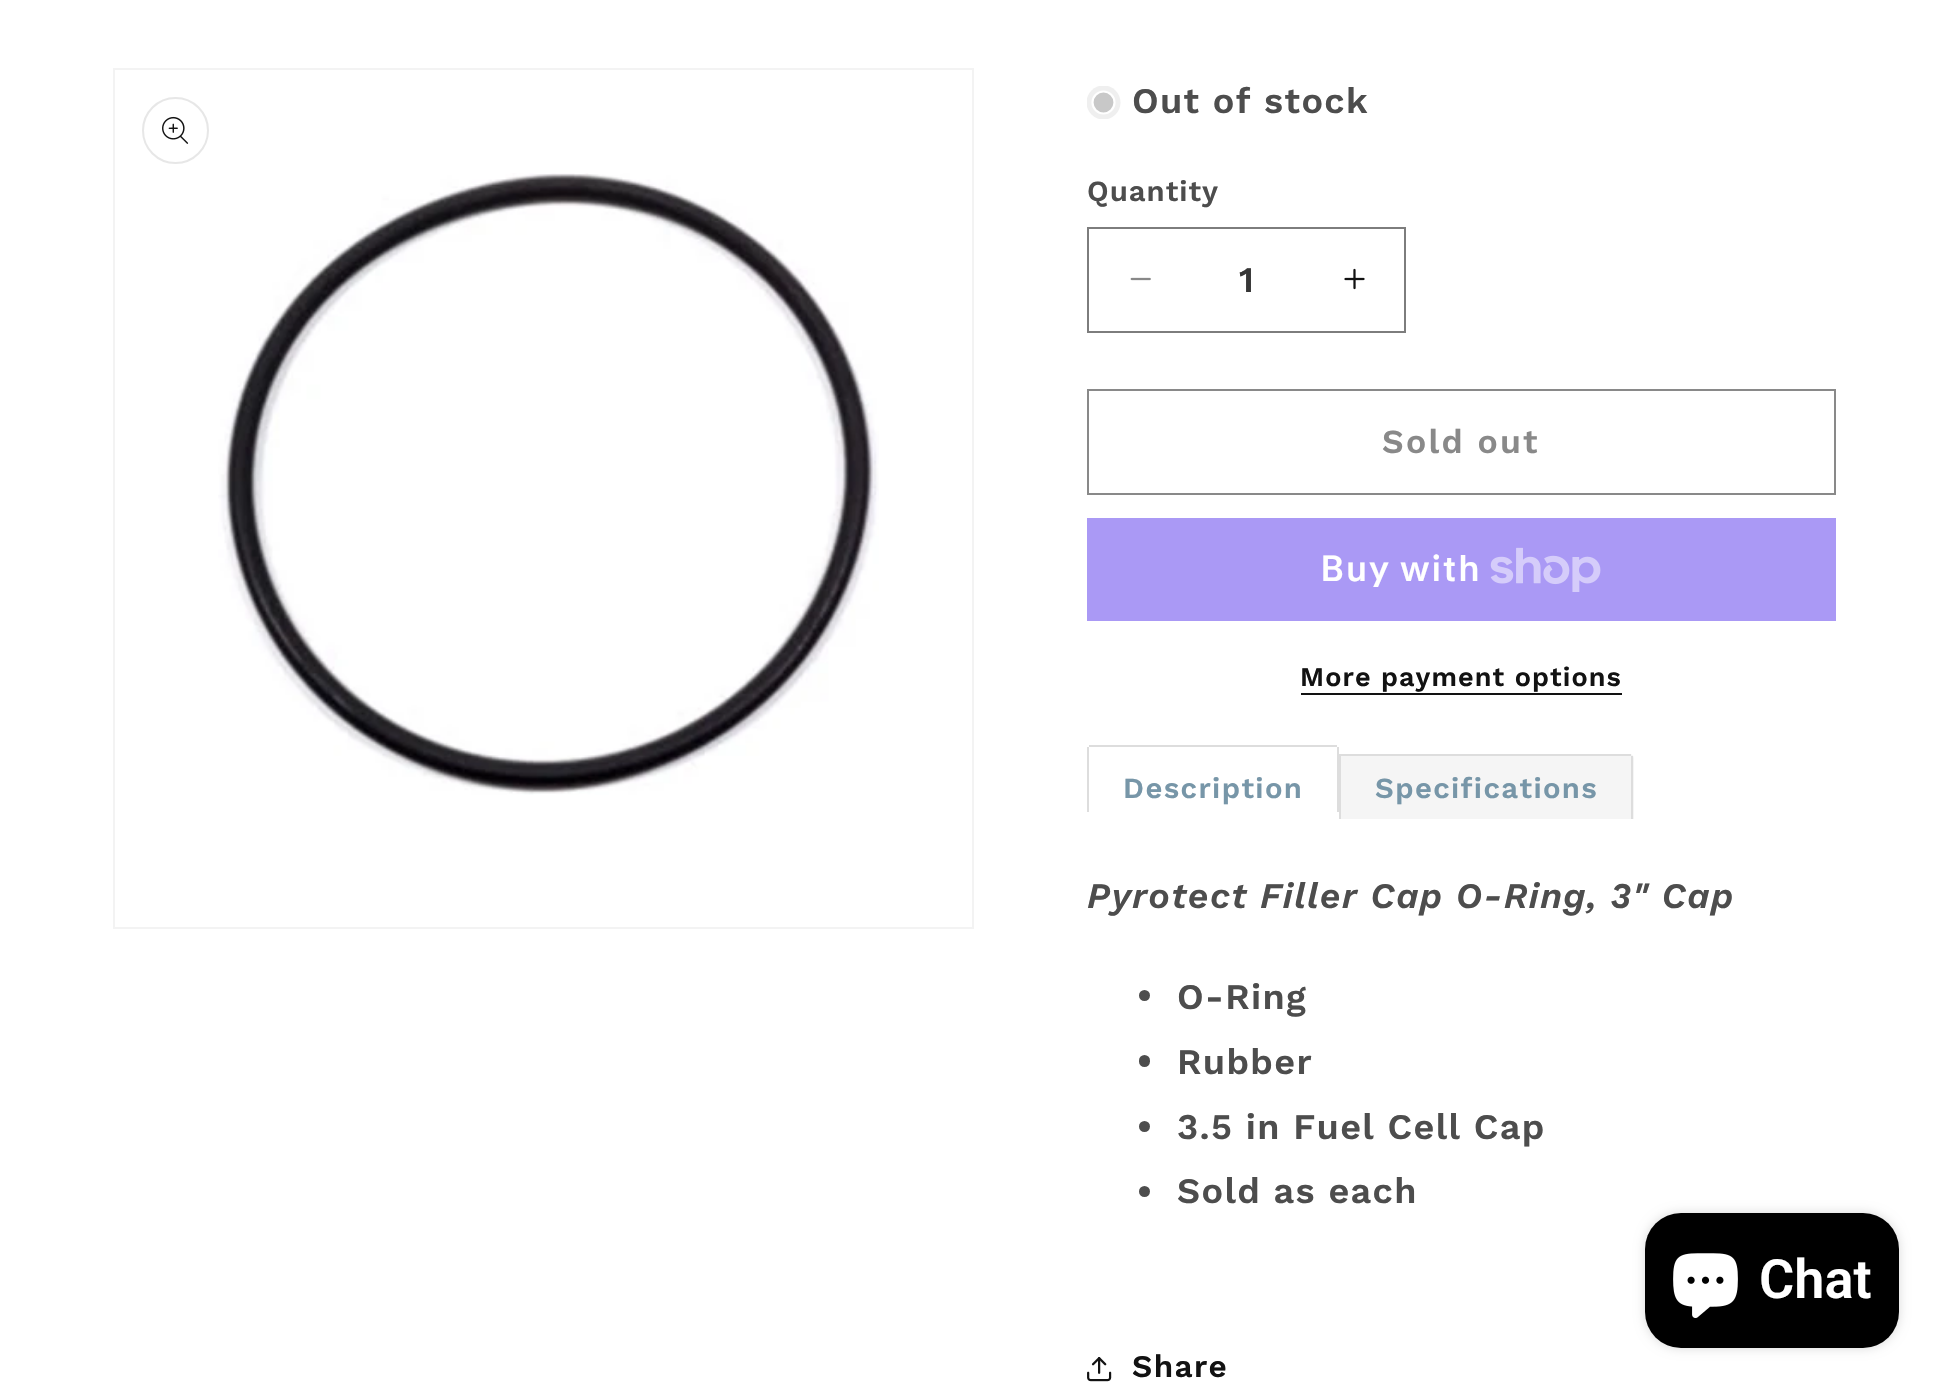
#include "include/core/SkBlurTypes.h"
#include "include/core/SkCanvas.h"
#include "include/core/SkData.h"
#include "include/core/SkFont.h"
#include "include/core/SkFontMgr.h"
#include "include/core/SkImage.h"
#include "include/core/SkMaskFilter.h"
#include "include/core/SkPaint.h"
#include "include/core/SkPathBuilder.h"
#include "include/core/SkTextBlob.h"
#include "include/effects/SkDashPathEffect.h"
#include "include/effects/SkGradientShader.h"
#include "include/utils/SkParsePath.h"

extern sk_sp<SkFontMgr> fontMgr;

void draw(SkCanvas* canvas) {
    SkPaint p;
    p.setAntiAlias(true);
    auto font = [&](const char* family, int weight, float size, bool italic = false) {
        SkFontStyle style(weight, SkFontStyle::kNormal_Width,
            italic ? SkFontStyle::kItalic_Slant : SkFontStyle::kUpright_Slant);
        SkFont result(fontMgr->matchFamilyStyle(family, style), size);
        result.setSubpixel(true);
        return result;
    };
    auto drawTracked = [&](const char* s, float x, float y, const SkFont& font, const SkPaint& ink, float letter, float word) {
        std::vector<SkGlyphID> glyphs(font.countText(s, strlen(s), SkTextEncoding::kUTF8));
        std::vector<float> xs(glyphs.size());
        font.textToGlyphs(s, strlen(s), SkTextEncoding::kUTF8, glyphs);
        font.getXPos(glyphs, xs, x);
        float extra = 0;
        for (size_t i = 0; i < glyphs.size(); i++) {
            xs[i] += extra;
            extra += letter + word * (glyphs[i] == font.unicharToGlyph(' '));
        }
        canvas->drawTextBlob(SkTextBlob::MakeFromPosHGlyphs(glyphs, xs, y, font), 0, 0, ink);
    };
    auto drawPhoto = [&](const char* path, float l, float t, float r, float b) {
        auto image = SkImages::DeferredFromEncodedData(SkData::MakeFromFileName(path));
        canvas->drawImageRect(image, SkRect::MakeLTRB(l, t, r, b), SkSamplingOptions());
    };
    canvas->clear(0xFFFFFFFF);
    p.setStyle(SkPaint::kStroke_Style);
    p.setStrokeWidth(2);
    p.setColor(0xFFF3F3F3);
    canvas->drawRect(SkRect::MakeLTRB(114, 69, 973, 928), p);
    p.setColor(0xFFE7E7E7);
    canvas->drawCircle(175.5f, 130.5f, 32.5f, p);
    drawPhoto("media/1.png", 162, 116, 189, 144);
    drawPhoto("media/2.png", 218, 173, 879, 795);
    canvas->save();
    canvas->clipRect(SkRect::MakeLTRB(1087, 86, 1121, 119));
    p.setStyle(SkPaint::kFill_Style);
    p.setColor(0xFFEFEFEF);
    canvas->drawCircle(1103.5f, 102.5f, 17, p);
    canvas->restore();
    p.setColor(0xFFC8C8C8);
    canvas->drawCircle(1103.5f, 102.5f, 11, p);
    p.setStyle(SkPaint::kStroke_Style);
    p.setStrokeWidth(2.2f);
    p.setColor(0xFFFFFFFF);
    canvas->drawCircle(1103.5f, 102.5f, 11, p);
    auto font1 = font("Work Sans", 600, 36);
    p.setStyle(SkPaint::kFill_Style);
    p.setColor(0xFF4D4D4D);
    drawTracked("Out of stock", 1132, 113, font1, p, 1.35f, 0);
    auto font2 = font("Work Sans", 600, 29.25f);
    drawTracked("Quantity", 1087, 201, font2, p, 1, 0);
    drawPhoto("media/3.png", 1130, 277, 1151, 281);
    drawPhoto("media/4.png", 1344, 268, 1365, 290);
    p.setStyle(SkPaint::kStroke_Style);
    p.setStrokeWidth(2);
    p.setColor(0xFF7D7D7D);
    canvas->drawRect(SkRect::MakeLTRB(1088, 228, 1405, 332), p);
    p.setStyle(SkPaint::kFill_Style);
    p.setColor(0xFF363636);
    canvas->drawString("1", 1239, 292, font1, p);
    p.setStyle(SkPaint::kStroke_Style);
    p.setColor(0xFF898989);
    canvas->drawRect(SkRect::MakeLTRB(1088, 390, 1835, 494), p);
    auto font3 = font("Work Sans", 600, 33.75f);
    p.setStyle(SkPaint::kFill_Style);
    drawTracked("Sold out", 1382, 453, font3, p, 2.25f, 0);
    p.setColor(0xFFAA99F5);
    canvas->drawRect(SkRect::MakeLTRB(1087, 518, 1836, 621), p);
    auto font4 = font("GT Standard", 600, 36);
    p.setColor(0xFFFFFFFF);
    drawTracked("Buy with", 1320, 581, font4, p, 1.35f, 0);
    drawPhoto("media/5.png", 1490, 547, 1601, 592);
    auto font5 = font("Work Sans", 600, 27);
    p.setColor(0xFF121212);
    drawTracked("More payment options", 1300, 686, font5, p, 1.1f, 0);
    {
        const struct { float l, t, r, b; SkColor color; } items[] = {
            {1301, 693, 1622, 695, 0xFF121212},
            {1089, 745, 1337, 747, 0xFFDDDDDD},
            {1337, 747, 1339, 812, 0xFFDDDDDD},
            {1087, 747, 1089, 812, 0xFFDDDDDD},
        };
        for (auto [l, t, r, b, color] : items) {
            p.setColor(color);
            canvas->drawRect(SkRect::MakeLTRB(l, t, r, b), p);
        }
    }
    p.setColor(0xFF7796A8);
    drawTracked("Description", 1123, 798, font2, p, 1.35f, 0);
    p.setColor(0xFFF5F5F5);
    canvas->drawPath(SkPathBuilder().moveTo(1339, 754).lineTo(1629, 754).cubicTo(1632, 754, 1634, 756, 1634, 759).lineTo(1634, 819).lineTo(1339, 819).close().detach(), p);
    {
        const struct { float l, t, r, b; SkColor color; } items[] = {
            {1339, 754, 1631, 756, 0xFFDDDDDD},
            {1631, 756, 1633, 819, 0xFFDDDDDD},
            {1339, 754, 1341, 819, 0xFFDDDDDD},
        };
        for (auto [l, t, r, b, color] : items) {
            p.setColor(color);
            canvas->drawRect(SkRect::MakeLTRB(l, t, r, b), p);
        }
    }
    p.setColor(0xFF7796A8);
    drawTracked("Specifications", 1375, 798, font2, p, 1.35f, 0);
    auto font6 = font("Work Sans", 600, 36, true);
    p.setColor(0xFF4D4D4D);
    drawTracked("Pyrotect Filler Cap O-Ring, 3\" Cap", 1087, 908, font6, p, 1.35f, 0);
    canvas->drawCircle(1144.5f, 995.5f, 5.5f, p);
    drawTracked("O-Ring", 1177, 1009, font1, p, 1.35f, 0);
    canvas->drawRoundRect(SkRect::MakeLTRB(1139, 1055, 1150, 1067), 5.5f, 5.5f, p);
    drawTracked("Rubber", 1177, 1074, font1, p, 1.35f, 0);
    canvas->drawCircle(1144.5f, 1126.5f, 5.5f, p);
    drawTracked("3.5 in Fuel Cell Cap", 1177, 1139, font1, p, 1.35f, 0);
    canvas->drawCircle(1144.5f, 1191.5f, 5.5f, p);
    drawTracked("Sold as each", 1177, 1203, font1, p, 1.35f, 0);
    drawPhoto("media/6.png", 1087, 1357, 1112, 1382);
    auto font7 = font("Work Sans", 600, 31.5f);
    p.setColor(0xFF121212);
    drawTracked("Share", 1132, 1377, font7, p, 1.35f, 0);
    p.setColor(0x26000000);
    p.setMaskFilter(SkMaskFilter::MakeBlur(kNormal_SkBlurStyle, 5.5f));
    canvas->drawRoundRect(SkRect::MakeLTRB(1645, 1213, 1899, 1348), 36, 36, p);
    p.setMaskFilter(nullptr);
    p.setColor(0xFF000000);
    canvas->drawRoundRect(SkRect::MakeLTRB(1645, 1213, 1899, 1348), 36, 36, p);
    drawPhoto("media/7.png", 1673, 1253, 1738, 1318);
    auto font8 = font("Roboto", 600, 54);
    p.setColor(0xFFFFFFFF);
    canvas->drawString("Chat", 1759, 1298, font8, p);
}
